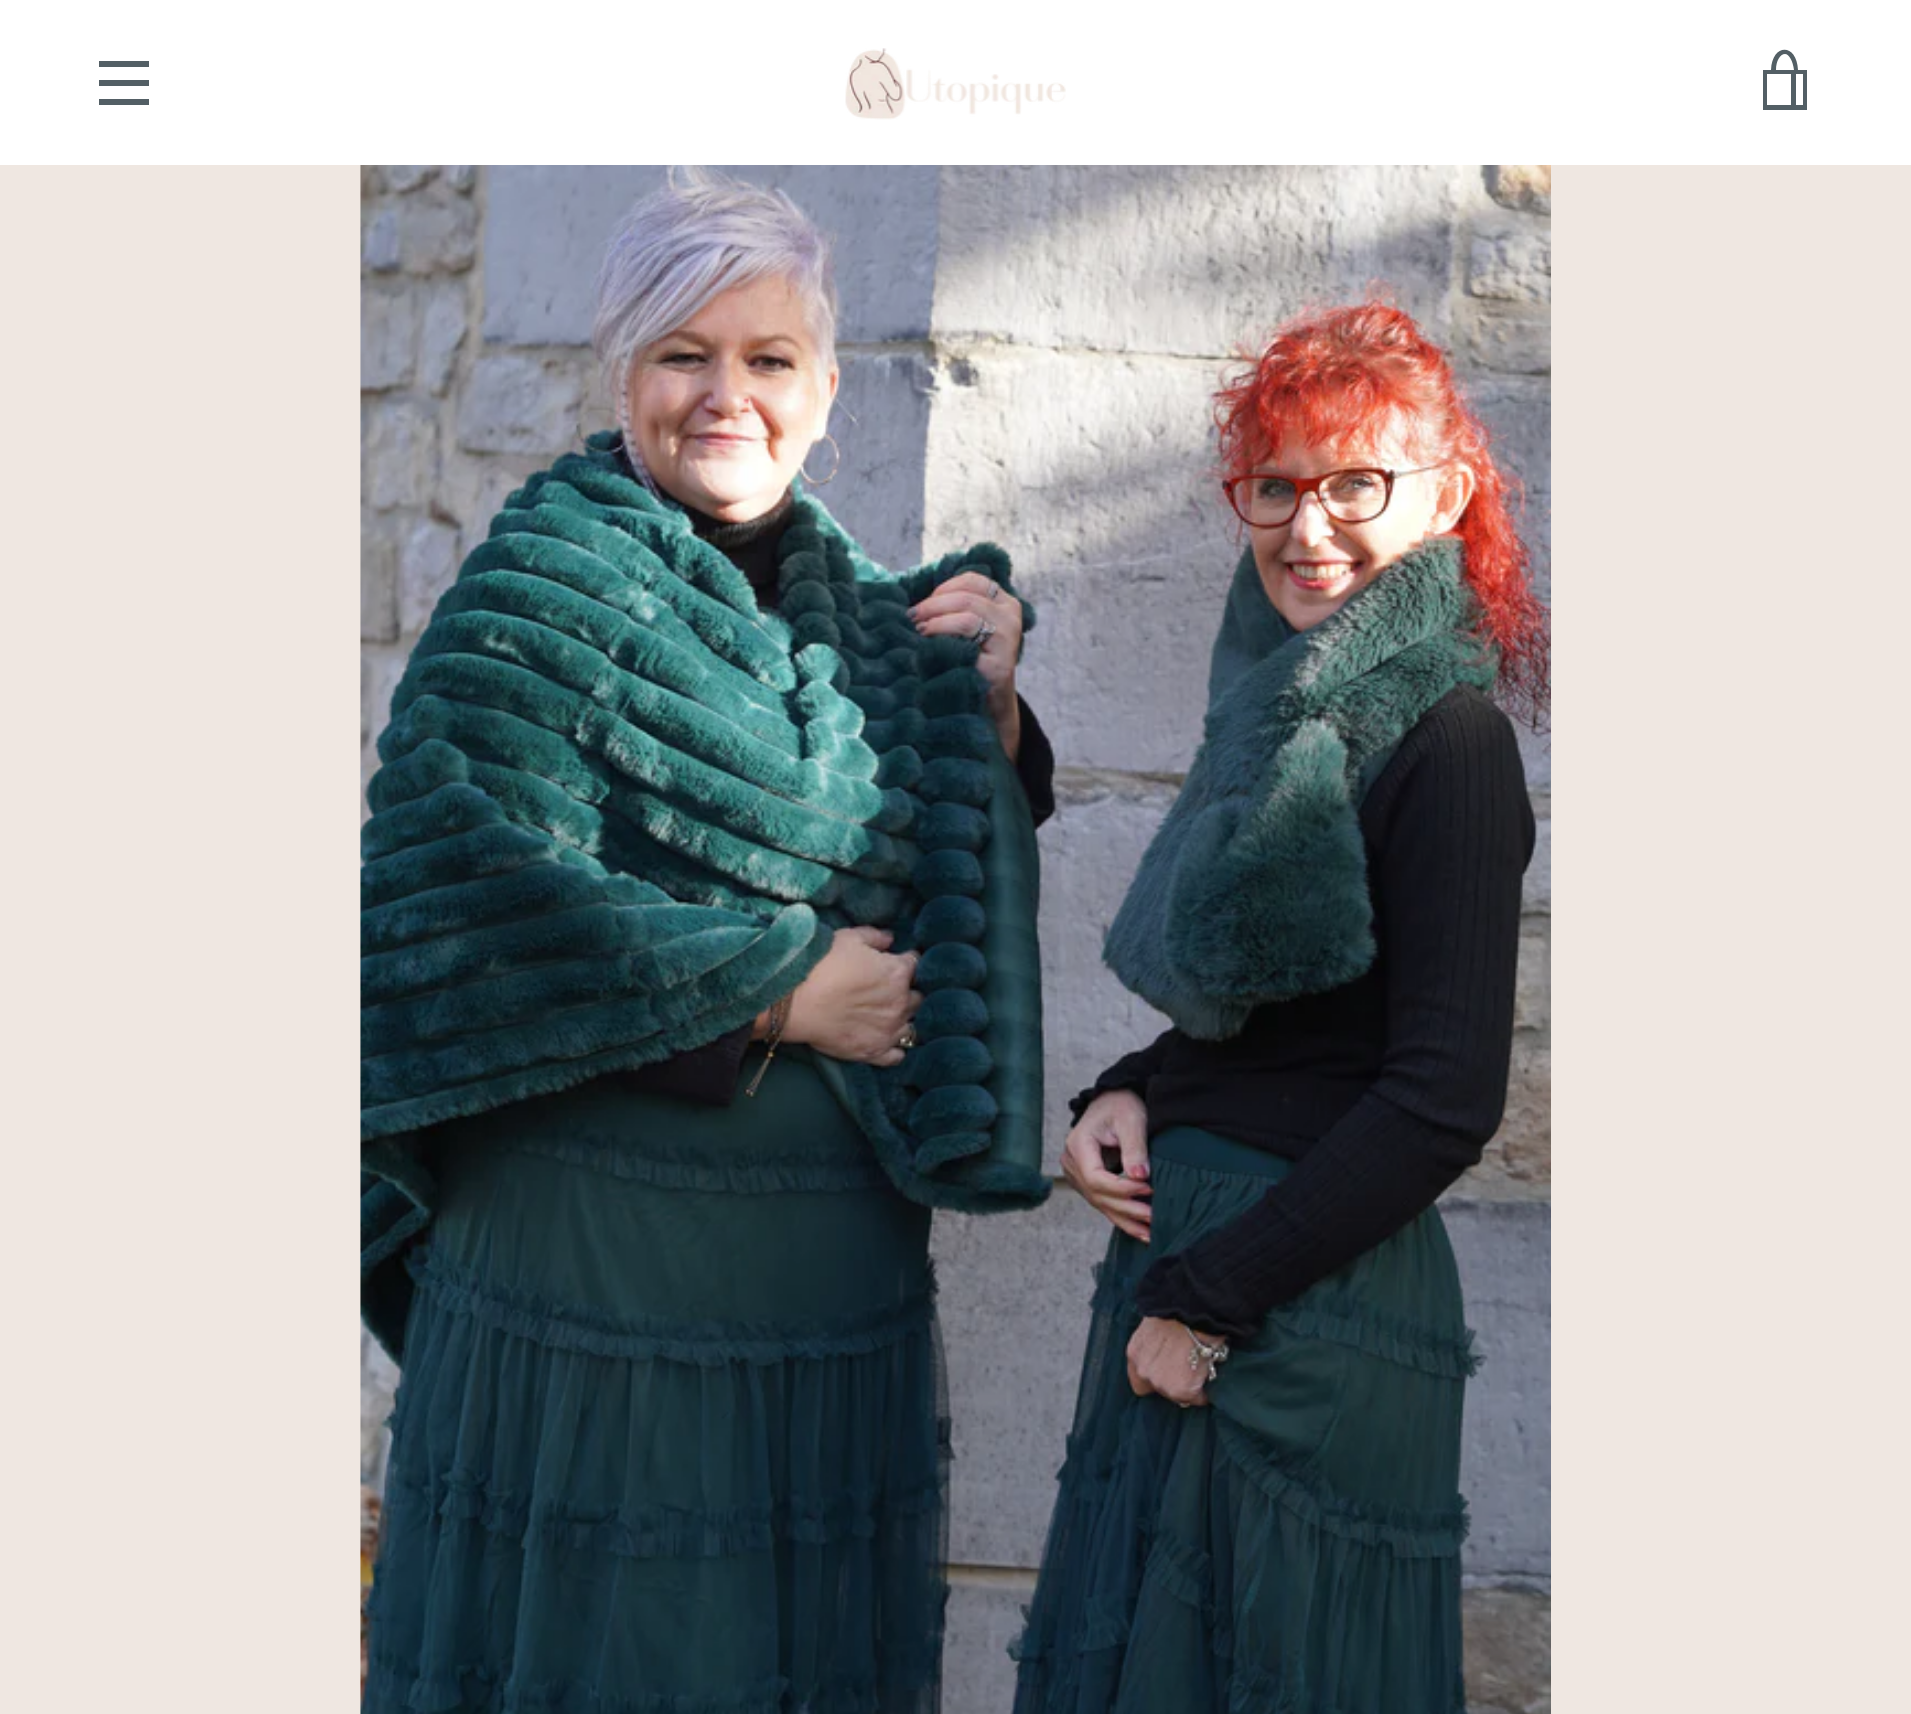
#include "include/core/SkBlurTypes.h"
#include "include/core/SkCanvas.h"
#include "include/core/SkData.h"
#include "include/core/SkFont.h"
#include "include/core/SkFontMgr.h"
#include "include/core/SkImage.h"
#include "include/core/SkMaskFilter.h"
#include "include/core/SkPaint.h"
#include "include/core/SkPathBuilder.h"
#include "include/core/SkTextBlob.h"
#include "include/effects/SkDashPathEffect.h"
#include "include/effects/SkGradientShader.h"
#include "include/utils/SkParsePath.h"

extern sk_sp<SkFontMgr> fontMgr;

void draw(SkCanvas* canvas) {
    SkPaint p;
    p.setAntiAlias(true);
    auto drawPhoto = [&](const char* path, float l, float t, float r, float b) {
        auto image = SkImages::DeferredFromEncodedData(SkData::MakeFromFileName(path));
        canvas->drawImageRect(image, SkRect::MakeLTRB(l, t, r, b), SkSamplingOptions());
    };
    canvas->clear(0xFFEFE7E1);
    {
        const struct { float l, t, r, b; SkColor color; } items[] = {
            {0, 0, 1911, 165, 0xFFFFFFFF},
            {99, 61, 149, 67, 0xFF535F65},
            {99, 80, 149, 86, 0xFF535F65},
            {99, 99, 149, 105, 0xFF535F65},
        };
        for (auto [l, t, r, b, color] : items) {
            p.setColor(color);
            canvas->drawRect(SkRect::MakeLTRB(l, t, r, b), p);
        }
    }
    drawPhoto("media/1.png", 845, 48, 1066, 120);
    canvas->drawPath(SkPathBuilder().moveTo(1798, 70).cubicTo(1797, 43, 1772, 43, 1771, 70).lineTo(1763, 70).lineTo(1763, 110).lineTo(1807, 110).lineTo(1807, 70).close().moveTo(1785, 54).cubicTo(1789, 54, 1793, 61, 1794, 70).lineTo(1776, 70).cubicTo(1776, 61, 1780, 54, 1785, 54).close().moveTo(1767, 105).lineTo(1767, 74).lineTo(1791, 74).lineTo(1791, 105).close().moveTo(1803, 105).lineTo(1796, 105).lineTo(1796, 74).lineTo(1803, 74).close().detach(), p);
    drawPhoto("media/2.png", 360, 165, 1551, 1714);
}
